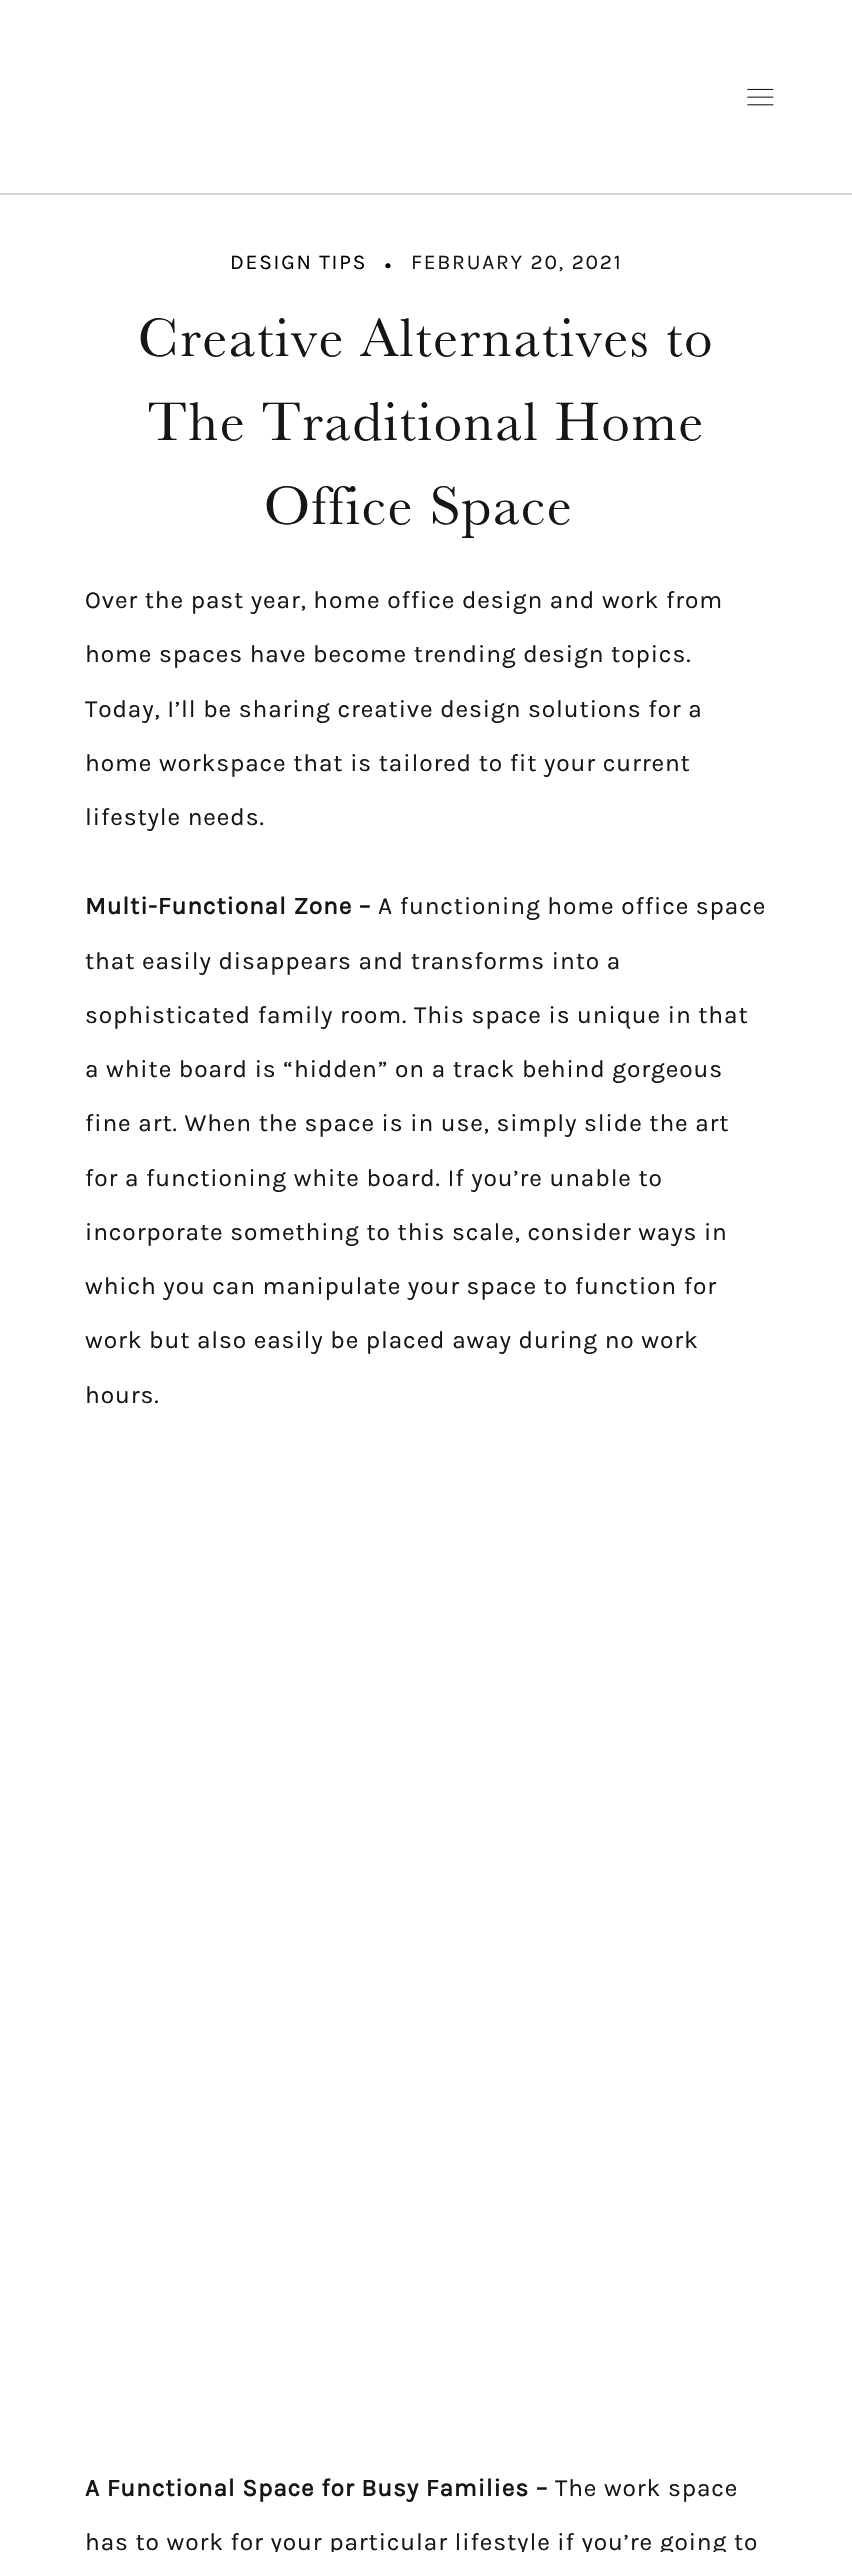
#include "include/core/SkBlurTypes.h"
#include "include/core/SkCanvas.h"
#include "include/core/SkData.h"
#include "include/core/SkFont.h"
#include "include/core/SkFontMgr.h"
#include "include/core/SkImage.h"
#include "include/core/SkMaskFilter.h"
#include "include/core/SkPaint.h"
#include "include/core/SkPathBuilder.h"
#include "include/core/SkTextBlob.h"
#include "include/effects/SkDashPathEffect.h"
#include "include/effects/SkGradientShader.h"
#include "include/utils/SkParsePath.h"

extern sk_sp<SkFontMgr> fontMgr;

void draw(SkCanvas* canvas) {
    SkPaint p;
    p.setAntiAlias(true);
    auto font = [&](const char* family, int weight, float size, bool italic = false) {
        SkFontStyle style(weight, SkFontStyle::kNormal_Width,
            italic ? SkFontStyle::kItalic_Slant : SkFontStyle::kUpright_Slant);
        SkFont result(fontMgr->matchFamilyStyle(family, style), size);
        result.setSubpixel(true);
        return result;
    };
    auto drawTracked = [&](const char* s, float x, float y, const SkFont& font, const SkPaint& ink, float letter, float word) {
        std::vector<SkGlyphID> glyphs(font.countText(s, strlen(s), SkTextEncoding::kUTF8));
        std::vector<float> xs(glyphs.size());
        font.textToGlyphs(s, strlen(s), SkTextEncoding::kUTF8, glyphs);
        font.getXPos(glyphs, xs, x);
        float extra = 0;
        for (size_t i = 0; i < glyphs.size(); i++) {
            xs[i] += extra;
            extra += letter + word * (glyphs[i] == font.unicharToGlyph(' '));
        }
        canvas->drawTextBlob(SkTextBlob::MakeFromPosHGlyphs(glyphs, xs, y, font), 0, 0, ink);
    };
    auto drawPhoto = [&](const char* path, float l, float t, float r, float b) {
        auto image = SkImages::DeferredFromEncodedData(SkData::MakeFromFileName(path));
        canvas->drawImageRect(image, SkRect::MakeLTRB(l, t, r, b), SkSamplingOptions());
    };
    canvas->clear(0xFFFFFFFF);
    p.setColor(0xFFD2D2D2);
    canvas->drawRect(SkRect::MakeLTRB(0, 193, 852, 195), p);
    drawPhoto("media/1.png", 747, 88, 774, 106);
    auto font1 = font("Karla", 400, 21);
    p.setColor(0xFF000000);
    drawTracked("DESIGN TIPS", 230, 269, font1, p, 1.75f, 0);
    auto font2 = font("Karla", 400, 44);
    drawTracked("·", 384, 277, font2, p, 1.75f, 0);
    p.setColor(0xFF161616);
    drawTracked("FEBRUARY 20, 2021", 411, 269, font1, p, 1.75f, 0);
    auto font3 = font("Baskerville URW", 400, 56);
    {
        const struct { const char* s; float x, y; } items[] = {
            {"Creative Alternatives to", 138, 356},
            {"The Traditional Home", 148, 440},
            {"Office Space", 264, 524},
        };
        for (auto [s, x, y] : items) {
            drawTracked(s, x, y, font3, p, 1.75f, 0);
        }
    }
    auto font4 = font("Karla", 400, 24.5f);
    {
        const struct { const char* s; float x, y; } items[] = {
            {"Over the past year, home office design and work from", 85, 608},
            {"home spaces have become trending design topics.", 85, 662},
            {"Today, I’ll be sharing creative design solutions for a", 85, 717},
            {"home workspace that is tailored to fit your current", 85, 771},
            {"lifestyle needs.", 85, 825},
        };
        for (auto [s, x, y] : items) {
            drawTracked(s, x, y, font4, p, 0.88f, 0);
        }
    }
    auto font5 = font("Karla", 700, 24.5f);
    drawTracked("Multi-Functional Zone –", 85, 914, font5, p, 0.88f, 0);
    {
        const struct { const char* s; float x, y; } items[] = {
            {"A functioning home office space", 378, 914},
            {"that easily disappears and transforms into a", 85, 969},
            {"sophisticated family room. This space is unique in that", 85, 1023},
            {"a white board is “hidden” on a track behind gorgeous", 85, 1077},
            {"fine art. When the space is in use, simply slide the art", 85, 1131},
            {"for a functioning white board. If you’re unable to", 85, 1186},
            {"incorporate something to this scale, consider ways in", 85, 1240},
            {"which you can manipulate your space to function for", 85, 1294},
            {"work but also easily be placed away during no work", 85, 1348},
            {"hours.", 85, 1403},
        };
        for (auto [s, x, y] : items) {
            drawTracked(s, x, y, font4, p, 0.88f, 0);
        }
    }
    drawTracked("A Functional Space for Busy Families –", 85, 2496, font5, p, 0.88f, 0);
    drawTracked("The work space", 555, 2496, font4, p, 0.88f, 0);
    drawTracked("has to work for your particular lifestyle if you’re going to", 85, 2550, font4, p, 0.88f, 0);
}
